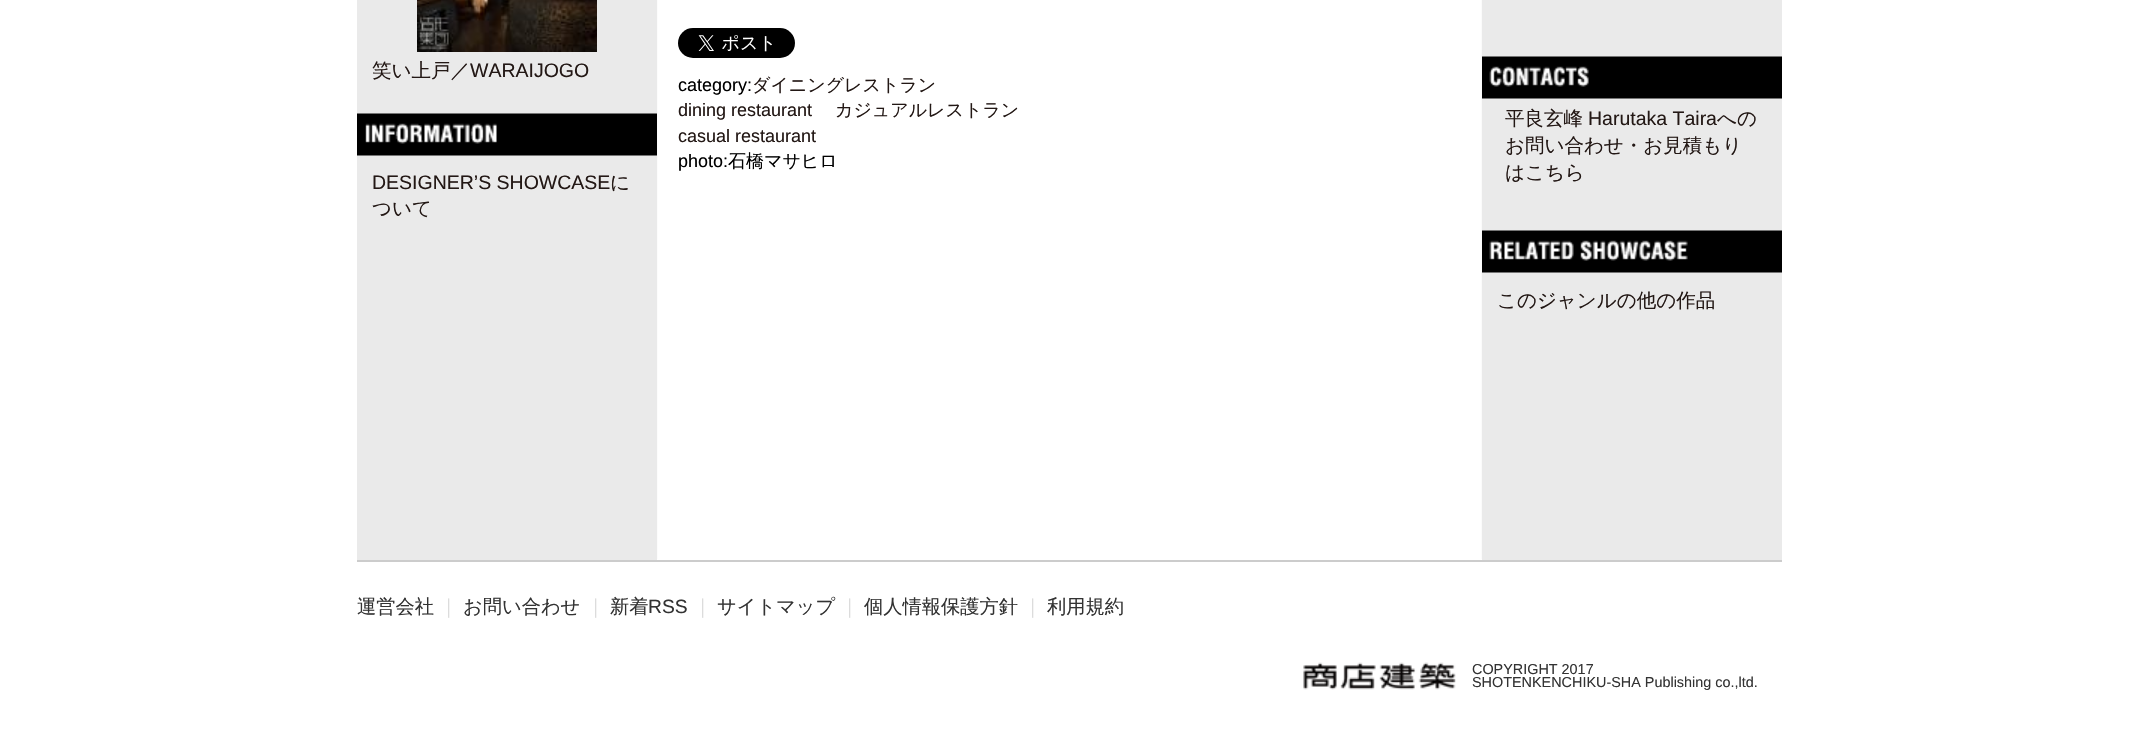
#include "include/core/SkBlurTypes.h"
#include "include/core/SkCanvas.h"
#include "include/core/SkData.h"
#include "include/core/SkFont.h"
#include "include/core/SkFontMgr.h"
#include "include/core/SkImage.h"
#include "include/core/SkMaskFilter.h"
#include "include/core/SkPaint.h"
#include "include/core/SkPathBuilder.h"
#include "include/core/SkTextBlob.h"
#include "include/effects/SkDashPathEffect.h"
#include "include/effects/SkGradientShader.h"
#include "include/utils/SkParsePath.h"

extern sk_sp<SkFontMgr> fontMgr;

void draw(SkCanvas* canvas) {
    SkPaint p;
    p.setAntiAlias(true);
    auto font = [&](const char* family, int weight, float size, bool italic = false) {
        SkFontStyle style(weight, SkFontStyle::kNormal_Width,
            italic ? SkFontStyle::kItalic_Slant : SkFontStyle::kUpright_Slant);
        SkFont result(fontMgr->matchFamilyStyle(family, style), size);
        result.setSubpixel(true);
        return result;
    };
    auto drawPhoto = [&](const char* path, float l, float t, float r, float b) {
        auto image = SkImages::DeferredFromEncodedData(SkData::MakeFromFileName(path));
        canvas->drawImageRect(image, SkRect::MakeLTRB(l, t, r, b), SkSamplingOptions());
    };
    canvas->clear(0xFFFFFFFF);
    drawPhoto("media/1.png", 657, 0, 1482, 559);
    p.setColor(0xFFEAEAEA);
    canvas->drawRect(SkRect::MakeLTRB(357, 0, 657, 560), p);
    drawPhoto("media/2.png", 417, 0, 597, 52);
    auto font1 = font("WenQuanYi Zen Hei", 500, 19.5f);
    p.setColor(0xFF231815);
    canvas->drawString("笑い上戸／", 372, 77, font1, p);
    auto font2 = font("Liberation Sans", 400, 19.5f);
    canvas->drawString("WARAIJOGO", 470, 77, font2, p);
    drawPhoto("media/3.png", 357, 113, 657, 156);
    canvas->drawString("DESIGNER’S SHOWCASE", 372, 189, font2, p);
    canvas->drawString("に", 610, 189, font1, p);
    canvas->drawString("ついて", 372, 215, font1, p);
    drawPhoto("media/4.png", 678, 28, 795, 58);
    auto font3 = font("Liberation Sans", 400, 18);
    p.setColor(0xFF000000);
    canvas->drawString("category:", 678, 91, font3, p);
    auto font4 = font("WenQuanYi Zen Hei", 500, 18);
    p.setColor(0xFF231815);
    canvas->drawString("ダイニングレストラン", 752, 91, font4, p);
    canvas->drawString("dining restaurant", 678, 116, font3, p);
    canvas->drawString("カジュアルレストラン", 835, 116, font4, p);
    canvas->drawString("casual restaurant", 678, 142, font3, p);
    p.setColor(0xFF000000);
    canvas->drawString("photo:", 678, 167, font3, p);
    canvas->drawString("石橋マサヒロ", 728, 167, font4, p);
    p.setColor(0xFFEAEAEA);
    canvas->drawRect(SkRect::MakeLTRB(1482, 0, 1782, 560), p);
    drawPhoto("media/5.png", 1482, 56, 1782, 99);
    p.setColor(0xFF231815);
    canvas->drawString("平良玄峰", 1505, 125, font1, p);
    canvas->drawString("Harutaka Taira", 1588, 125, font2, p);
    {
        const struct { const char* s; float x, y; } items[] = {
            {"への", 1717, 125},
            {"お問い合わせ・お見積もり", 1505, 152},
            {"はこちら", 1505, 179},
        };
        for (auto [s, x, y] : items) {
            canvas->drawString(s, x, y, font1, p);
        }
    }
    drawPhoto("media/6.png", 1482, 230, 1782, 273);
    canvas->drawString("このジャンルの他の作品", 1497, 307, font1, p);
    p.setColor(0xFFCCCCCC);
    canvas->drawRect(SkRect::MakeLTRB(357, 560, 1782, 562), p);
    auto font5 = font("WenQuanYi Zen Hei", 500, 19.25f);
    p.setColor(0xFF333333);
    canvas->drawString("運営会社", 357, 613, font5, p);
    p.setColor(0xFFDCDCDC);
    canvas->drawString("｜", 439, 613, font5, p);
    p.setColor(0xFF333333);
    canvas->drawString("お問い合わせ", 463, 613, font5, p);
    p.setColor(0xFFDCDCDC);
    canvas->drawString("｜", 586, 613, font5, p);
    p.setColor(0xFF333333);
    canvas->drawString("新着", 610, 613, font5, p);
    auto font6 = font("Liberation Sans", 400, 19.25f);
    canvas->drawString("RSS", 648, 613, font6, p);
    p.setColor(0xFFDCDCDC);
    canvas->drawString("｜", 693, 613, font5, p);
    p.setColor(0xFF333333);
    canvas->drawString("サイトマップ", 717, 613, font5, p);
    p.setColor(0xFFDCDCDC);
    canvas->drawString("｜", 840, 613, font5, p);
    p.setColor(0xFF333333);
    canvas->drawString("個人情報保護方針", 864, 613, font5, p);
    p.setColor(0xFFDCDCDC);
    canvas->drawString("｜", 1023, 613, font5, p);
    p.setColor(0xFF333333);
    canvas->drawString("利用規約", 1047, 613, font5, p);
    drawPhoto("media/7.png", 1303, 662, 1456, 690);
    auto font7 = font("Liberation Sans", 400, 14.4f);
    canvas->drawString("COPYRIGHT 2017", 1472, 674, font7, p);
    canvas->drawString("SHOTENKENCHIKU-SHA Publishing co.,ltd.", 1472, 687, font7, p);
}
